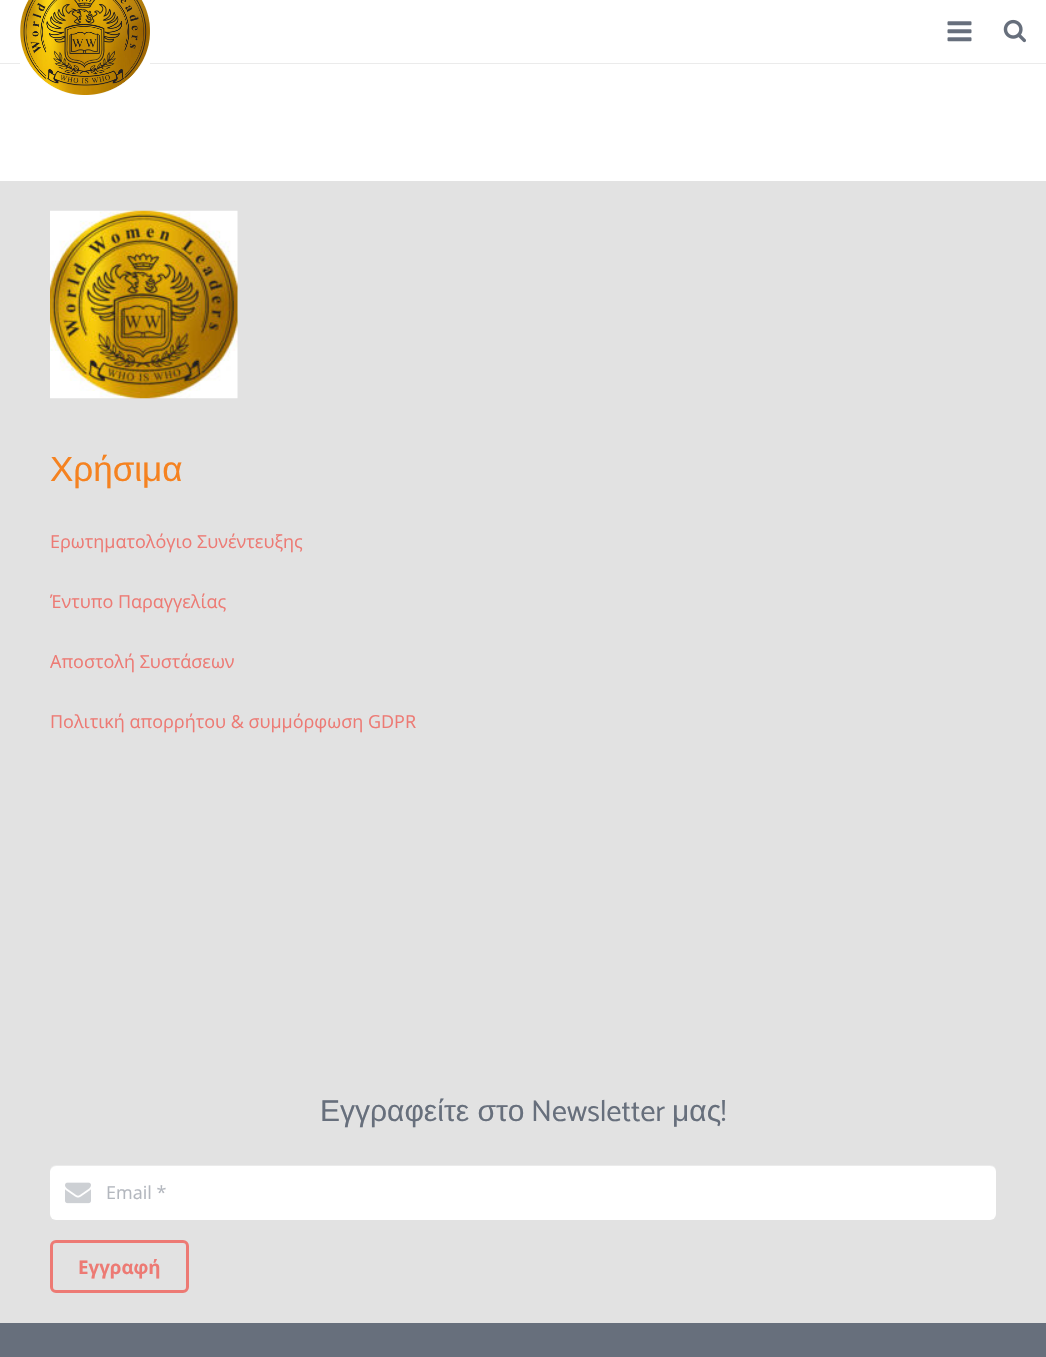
#include "include/core/SkBlurTypes.h"
#include "include/core/SkCanvas.h"
#include "include/core/SkData.h"
#include "include/core/SkFont.h"
#include "include/core/SkFontMgr.h"
#include "include/core/SkImage.h"
#include "include/core/SkMaskFilter.h"
#include "include/core/SkPaint.h"
#include "include/core/SkPathBuilder.h"
#include "include/core/SkTextBlob.h"
#include "include/effects/SkDashPathEffect.h"
#include "include/effects/SkGradientShader.h"
#include "include/utils/SkParsePath.h"

extern sk_sp<SkFontMgr> fontMgr;

void draw(SkCanvas* canvas) {
    SkPaint p;
    p.setAntiAlias(true);
    auto font = [&](const char* family, int weight, float size, bool italic = false) {
        SkFontStyle style(weight, SkFontStyle::kNormal_Width,
            italic ? SkFontStyle::kItalic_Slant : SkFontStyle::kUpright_Slant);
        SkFont result(fontMgr->matchFamilyStyle(family, style), size);
        result.setSubpixel(true);
        return result;
    };
    auto drawPhoto = [&](const char* path, float l, float t, float r, float b) {
        auto image = SkImages::DeferredFromEncodedData(SkData::MakeFromFileName(path));
        canvas->drawImageRect(image, SkRect::MakeLTRB(l, t, r, b), SkSamplingOptions());
    };
    canvas->clear(0xFFFFFFFF);
    p.setColor(0xFFEBEBEB);
    canvas->drawRect(SkRect::MakeLTRB(0, 63, 1046, 64), p);
    drawPhoto("media/1.png", 20, 0, 150, 95);
    drawPhoto("media/2.png", 947, 21, 972, 42);
    drawPhoto("media/3.png", 1003, 19, 1026, 43);
    p.setColor(0xFFE2E2E2);
    canvas->drawRect(SkRect::MakeLTRB(0, 181, 1046, 1323), p);
    drawPhoto("media/4.png", 50, 210, 238, 399);
    auto font1 = font("Liberation Sans", 400, 35);
    p.setColor(0xFFF58220);
    canvas->drawString("Χρήσιμα", 50, 481, font1, p);
    auto font2 = font("Open Sans", 400, 18);
    p.setColor(0xFFED7A74);
    {
        const struct { const char* s; float x, y; } items[] = {
            {"Ερωτηματολόγιο Συνέντευξης", 50, 548},
            {"Έντυπο Παραγγελίας", 50, 608},
            {"Αποστολή Συστάσεων", 50, 668},
            {"Πολιτική απορρήτου & συμμόρφωση GDPR", 50, 728},
        };
        for (auto [s, x, y] : items) {
            canvas->drawString(s, x, y, font2, p);
        }
    }
    auto font3 = font("Liberation Sans", 400, 30);
    p.setColor(0xFF676F7C);
    canvas->drawString("Εγγραφείτε στο", 320, 1121, font3, p);
    auto font4 = font("Catamaran", 400, 30);
    canvas->drawString("Newsletter", 531, 1121, font4, p);
    canvas->drawString("μας", 672, 1121, font3, p);
    canvas->drawString("!", 721, 1121, font4, p);
    p.setColor(0xFFFFFFFF);
    canvas->drawRoundRect(SkRect::MakeLTRB(50, 1165, 996, 1220), 6, 6, p);
    drawPhoto("media/5.png", 65, 1182, 91, 1204);
    p.setColor(0x14000000);
    canvas->drawPath(SkPathBuilder().moveTo(56, 1166).lineTo(990, 1166).cubicTo(994, 1166, 996, 1169, 996, 1172).lineTo(996, 1171).cubicTo(996, 1168, 993, 1165, 990, 1165).lineTo(56, 1165).cubicTo(53, 1165, 50, 1168, 50, 1171).lineTo(50, 1172).cubicTo(50, 1169, 53, 1166, 56, 1166).close().detach(), p);
    p.setColor(0xFFB3B7BE);
    canvas->drawString("Email *", 106, 1199, font2, p);
    p.setStyle(SkPaint::kStroke_Style);
    p.setStrokeWidth(3);
    p.setColor(0xFFED7A74);
    canvas->drawRoundRect(SkRect::MakeLTRB(51.5f, 1241.5f, 187.5f, 1291.5f), 4.5f, 4.5f, p);
    auto font5 = font("Open Sans", 700, 18.75f);
    p.setStyle(SkPaint::kFill_Style);
    canvas->drawString("Εγγραφή", 78, 1274, font5, p);
    p.setColor(0xFF676F7C);
    canvas->drawRect(SkRect::MakeLTRB(0, 1323, 1046, 1357), p);
}
